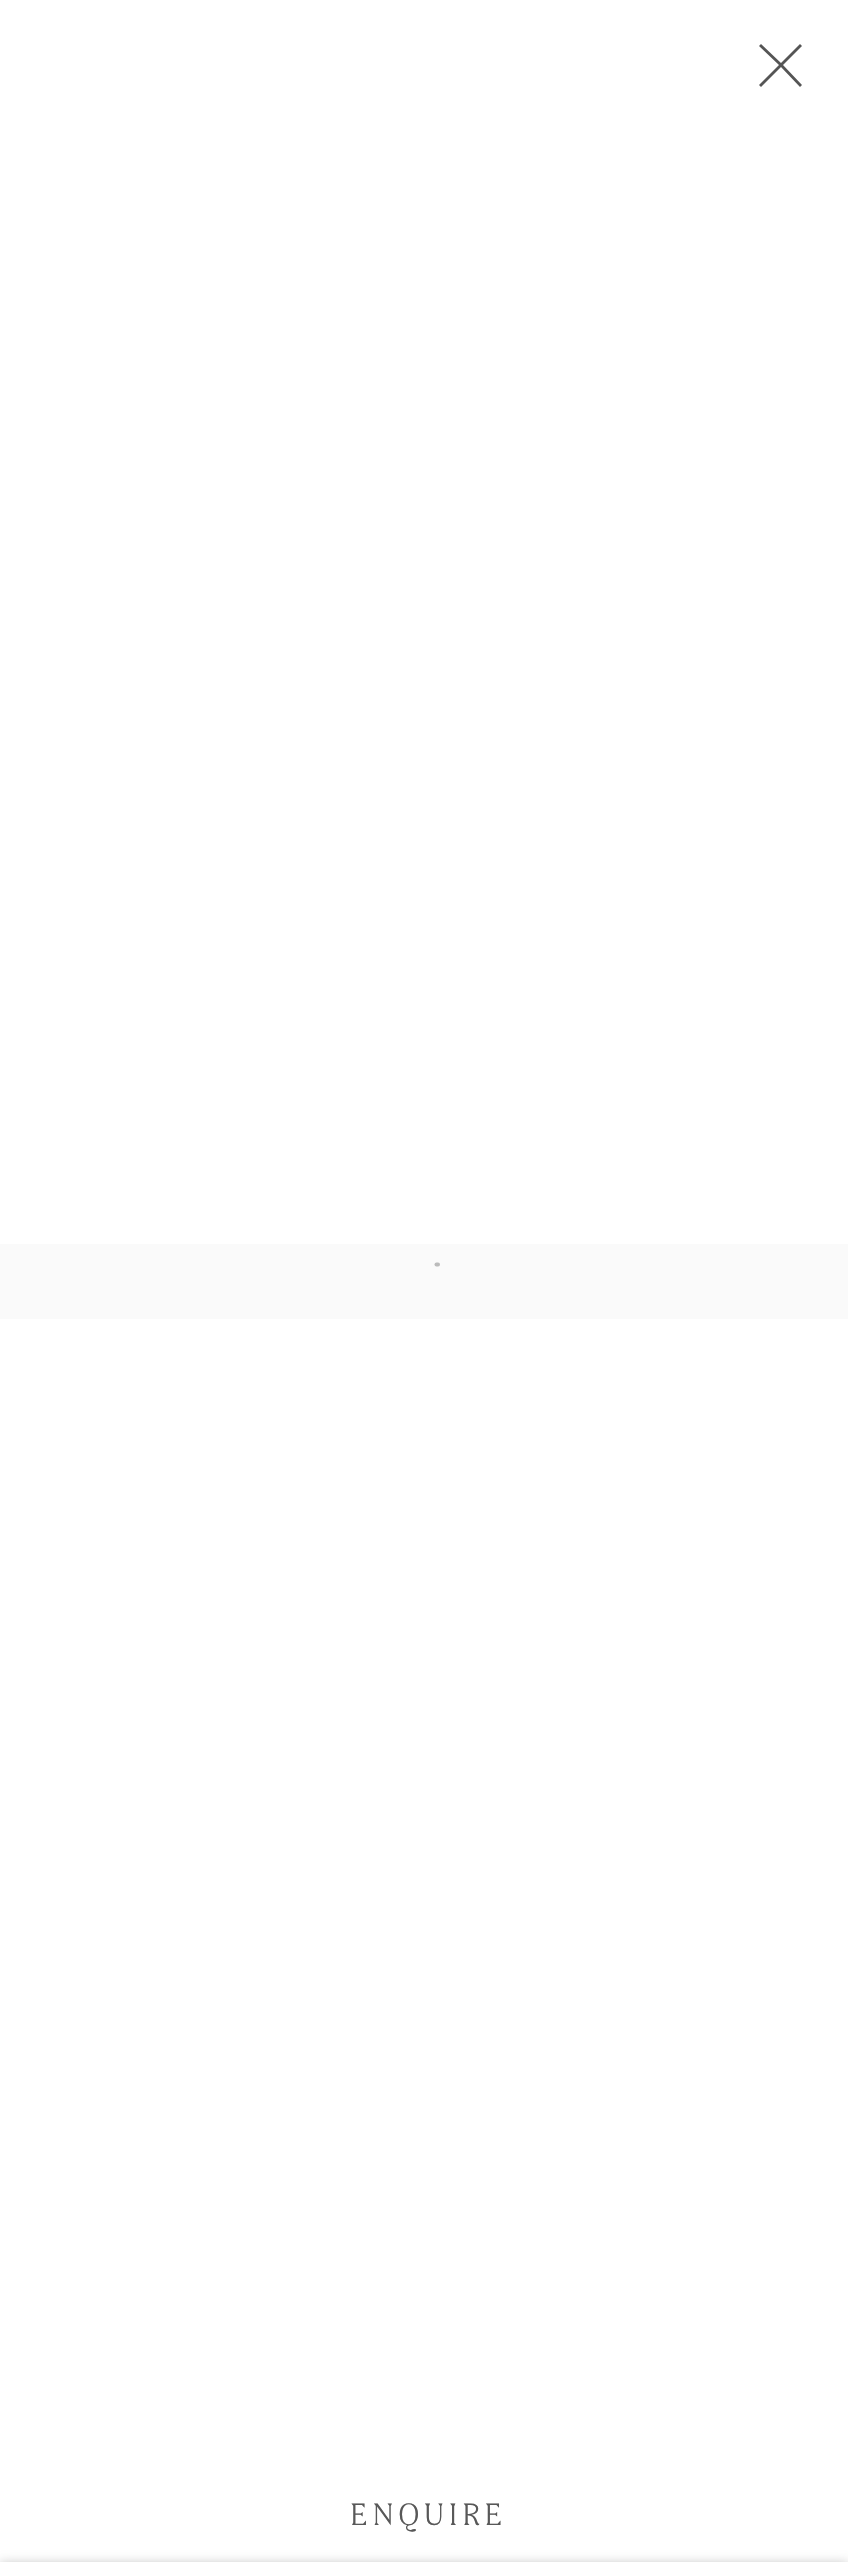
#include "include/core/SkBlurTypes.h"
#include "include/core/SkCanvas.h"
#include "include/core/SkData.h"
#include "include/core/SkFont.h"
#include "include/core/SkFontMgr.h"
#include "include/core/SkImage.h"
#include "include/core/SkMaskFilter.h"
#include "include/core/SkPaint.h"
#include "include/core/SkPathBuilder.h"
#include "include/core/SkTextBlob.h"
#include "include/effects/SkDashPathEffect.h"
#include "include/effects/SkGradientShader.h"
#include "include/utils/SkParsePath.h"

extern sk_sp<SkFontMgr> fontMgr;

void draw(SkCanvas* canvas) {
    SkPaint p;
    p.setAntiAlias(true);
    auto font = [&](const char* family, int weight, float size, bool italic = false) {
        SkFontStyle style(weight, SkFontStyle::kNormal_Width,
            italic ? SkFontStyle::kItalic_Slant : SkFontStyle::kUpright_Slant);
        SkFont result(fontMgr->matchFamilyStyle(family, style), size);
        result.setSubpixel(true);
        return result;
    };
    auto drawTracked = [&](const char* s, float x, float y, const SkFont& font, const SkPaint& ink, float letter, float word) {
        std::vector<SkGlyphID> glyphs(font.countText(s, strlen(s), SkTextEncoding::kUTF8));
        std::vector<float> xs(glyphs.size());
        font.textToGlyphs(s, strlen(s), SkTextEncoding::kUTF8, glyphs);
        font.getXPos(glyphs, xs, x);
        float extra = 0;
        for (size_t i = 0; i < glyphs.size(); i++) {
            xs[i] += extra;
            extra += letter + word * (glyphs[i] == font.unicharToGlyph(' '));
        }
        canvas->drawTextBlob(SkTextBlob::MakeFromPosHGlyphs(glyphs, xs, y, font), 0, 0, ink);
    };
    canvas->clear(0xFFFFFFFF);
    p.setColor(0xFF555555);
    canvas->drawPath(SkPathBuilder().moveTo(802, 46).lineTo(800, 44).lineTo(781, 63).lineTo(761, 44).lineTo(759, 46).lineTo(779, 65).lineTo(759, 85).lineTo(761, 87).lineTo(781, 67).lineTo(800, 87).lineTo(802, 85).lineTo(783, 65).close().detach(), p);
    p.setColor(0xFFFAFAFA);
    canvas->drawRect(SkRect::MakeLTRB(0, 1244, 848, 1319), p);
    p.setStyle(SkPaint::kStroke_Style);
    p.setStrokeWidth(4);
    p.setStrokeCap(SkPaint::kRound_Cap);
    p.setColor(0xFFBBBBBB);
    canvas->drawPath(SkPathBuilder().moveTo(436.5f, 1264.5f).lineTo(438, 1264.5f).detach(), p);
    auto font1 = font("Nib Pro", 400, 29.5f);
    p.setStyle(SkPaint::kFill_Style);
    p.setColor(0xFF585858);
    drawTracked("ENQUIRE", 350, 2525, font1, p, 4.75f, 0);
    p.setColor(0x3B000000);
    p.setMaskFilter(SkMaskFilter::MakeBlur(kNormal_SkBlurStyle, 5.5f));
    canvas->drawRect(SkRect::MakeLTRB(0, 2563, 848, 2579), p);
    p.setMaskFilter(nullptr);
}
